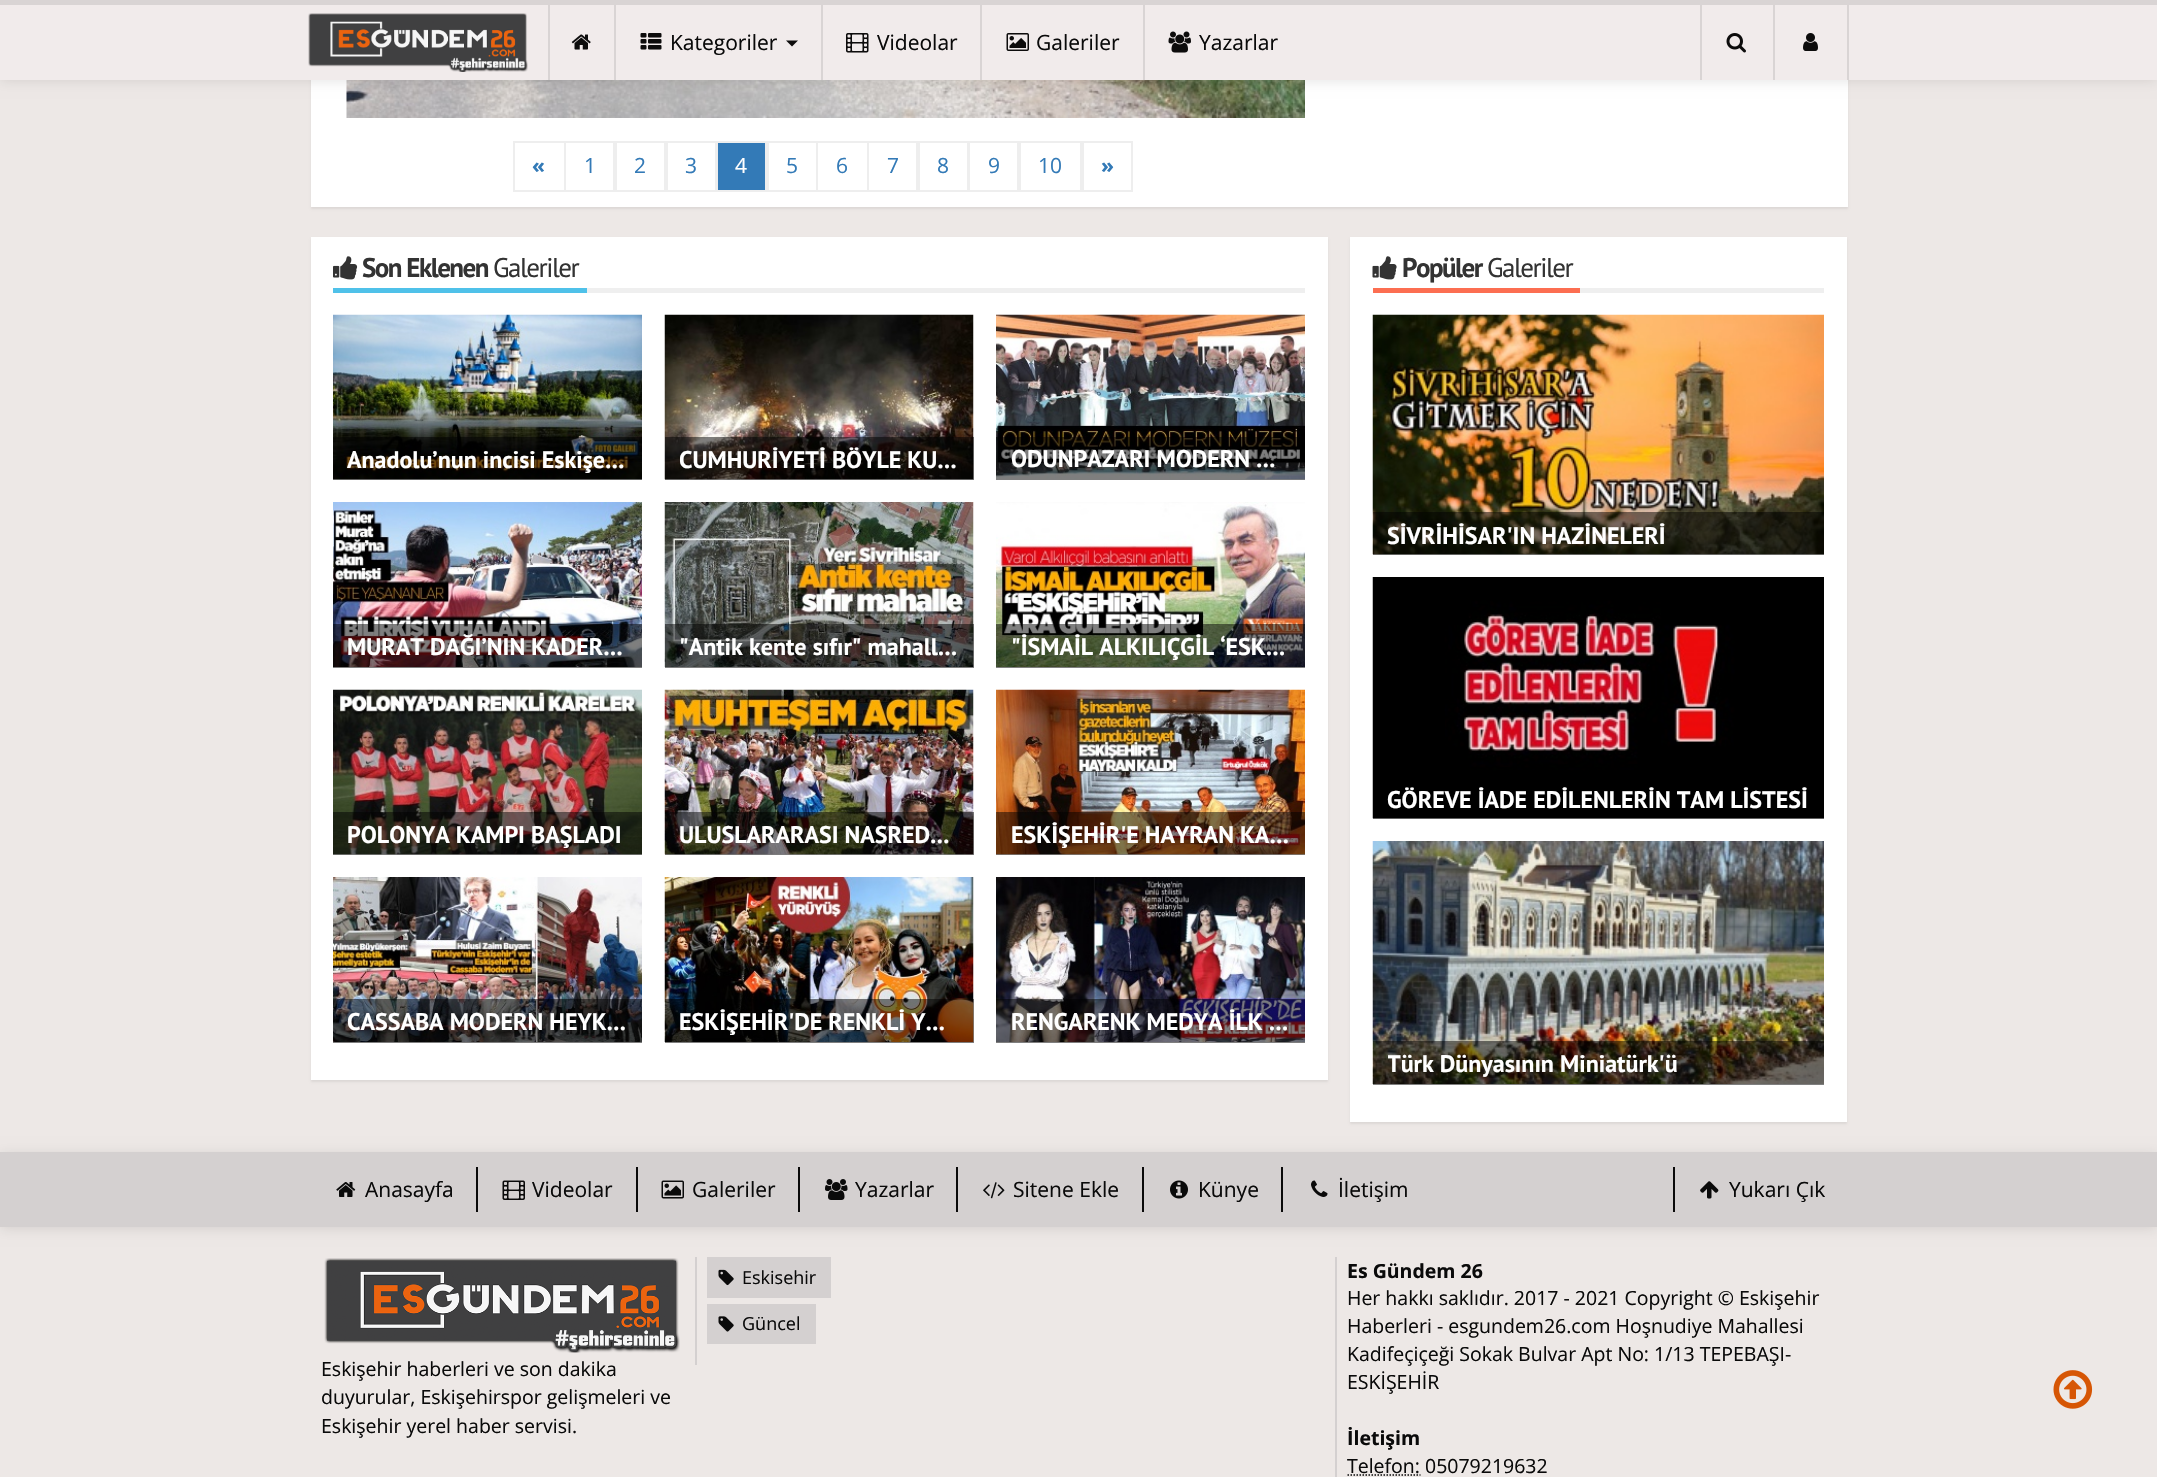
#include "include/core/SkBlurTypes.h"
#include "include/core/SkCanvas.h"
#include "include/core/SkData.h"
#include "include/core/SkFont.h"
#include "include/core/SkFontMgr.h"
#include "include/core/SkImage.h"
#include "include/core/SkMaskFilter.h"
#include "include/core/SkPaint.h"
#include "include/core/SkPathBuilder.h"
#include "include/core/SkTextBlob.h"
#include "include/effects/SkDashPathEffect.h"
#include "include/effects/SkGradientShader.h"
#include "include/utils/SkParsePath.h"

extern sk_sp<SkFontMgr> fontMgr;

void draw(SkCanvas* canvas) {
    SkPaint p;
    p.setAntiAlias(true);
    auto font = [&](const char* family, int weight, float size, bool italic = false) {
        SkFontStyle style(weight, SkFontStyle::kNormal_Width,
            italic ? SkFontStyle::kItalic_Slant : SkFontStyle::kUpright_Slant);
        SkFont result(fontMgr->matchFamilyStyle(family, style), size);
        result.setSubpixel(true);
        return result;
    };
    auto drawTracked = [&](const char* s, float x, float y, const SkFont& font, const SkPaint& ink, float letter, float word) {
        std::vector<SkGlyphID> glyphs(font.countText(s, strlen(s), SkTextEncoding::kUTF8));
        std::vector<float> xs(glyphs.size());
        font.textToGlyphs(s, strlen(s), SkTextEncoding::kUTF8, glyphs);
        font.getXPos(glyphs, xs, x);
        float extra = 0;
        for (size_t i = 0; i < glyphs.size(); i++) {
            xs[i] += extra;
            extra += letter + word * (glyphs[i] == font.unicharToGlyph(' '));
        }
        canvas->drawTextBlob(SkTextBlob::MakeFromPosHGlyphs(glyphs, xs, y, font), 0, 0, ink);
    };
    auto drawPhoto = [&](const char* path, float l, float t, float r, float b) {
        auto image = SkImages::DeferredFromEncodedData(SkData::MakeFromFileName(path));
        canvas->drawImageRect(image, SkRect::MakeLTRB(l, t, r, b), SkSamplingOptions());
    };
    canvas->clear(0xFFEDE8E6);
    p.setColor(0x12000000);
    p.setMaskFilter(SkMaskFilter::MakeBlur(kNormal_SkBlurStyle, 1));
    canvas->drawRect(SkRect::MakeLTRB(311, -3, 1848, 209), p);
    p.setMaskFilter(nullptr);
    p.setColor(0xFFFFFFFF);
    canvas->drawRect(SkRect::MakeLTRB(311, 80, 1848, 207), p);
    drawPhoto("media/9.png", 346, 80, 1305, 118);
    p.setColor(0x1A000000);
    p.setMaskFilter(SkMaskFilter::MakeBlur(kNormal_SkBlurStyle, 6));
    canvas->drawRect(SkRect::MakeLTRB(0, 2, 2157, 81), p);
    p.setMaskFilter(nullptr);
    p.setColor(0xFFF1EBEB);
    canvas->drawRect(SkRect::MakeLTRB(0, 5, 2157, 80), p);
    p.setColor(0xFFD9D4D4);
    canvas->drawRect(SkRect::MakeLTRB(0, 0, 2157, 5), p);
    drawPhoto("media/1.png", 308, 13, 528, 72);
    canvas->drawRect(SkRect::MakeLTRB(548, 5, 550, 80), p);
    drawPhoto("media/2.png", 571, 34, 591, 50);
    canvas->drawRect(SkRect::MakeLTRB(614, 5, 616, 80), p);
    drawPhoto("media/3.png", 640, 33, 662, 50);
    auto font1 = font("Open Sans", 400, 21);
    p.setColor(0xFF0A0A0A);
    canvas->drawString("Kategoriler", 670, 50, font1, p);
    p.setColor(0xFF0D0C0C);
    canvas->drawPath(SkPathBuilder().moveTo(786, 40.5f).lineTo(798, 40.5f).lineTo(792, 46.5f).close().detach(), p);
    p.setColor(0xFFD9D4D4);
    canvas->drawRect(SkRect::MakeLTRB(821, 5, 823, 80), p);
    drawPhoto("media/4.png", 846, 33, 869, 53);
    p.setColor(0xFF0A0A0A);
    canvas->drawString("Videolar", 877, 50, font1, p);
    p.setColor(0xFFD9D4D4);
    canvas->drawRect(SkRect::MakeLTRB(980, 5, 982, 80), p);
    drawPhoto("media/5.png", 1006, 33, 1029, 51);
    p.setColor(0xFF0A0A0A);
    canvas->drawString("Galeriler", 1036, 50, font1, p);
    p.setColor(0xFFD9D4D4);
    canvas->drawRect(SkRect::MakeLTRB(1143, 5, 1145, 80), p);
    drawPhoto("media/6.png", 1168, 31, 1191, 53);
    p.setColor(0xFF0A0A0A);
    canvas->drawString("Yazarlar", 1199, 50, font1, p);
    p.setColor(0xFFD9D4D4);
    canvas->drawRect(SkRect::MakeLTRB(1700, 5, 1702, 80), p);
    drawPhoto("media/7.png", 1726, 33, 1746, 53);
    canvas->drawRect(SkRect::MakeLTRB(1847, 5, 1849, 80), p);
    canvas->drawRect(SkRect::MakeLTRB(1773, 5, 1775, 80), p);
    drawPhoto("media/8.png", 1803, 33, 1818, 51);
    p.setStyle(SkPaint::kStroke_Style);
    p.setStrokeWidth(2);
    p.setColor(0xFFEEEEEE);
    canvas->drawRect(SkRect::MakeLTRB(514, 142, 565, 191), p);
    auto font2 = font("Open Sans", 700, 21);
    p.setStyle(SkPaint::kFill_Style);
    p.setColor(0xFF337AB7);
    canvas->drawString("«", 532, 173, font2, p);
    p.setStyle(SkPaint::kStroke_Style);
    p.setColor(0xFFEEEEEE);
    canvas->drawRect(SkRect::MakeLTRB(565, 142, 614, 191), p);
    p.setStyle(SkPaint::kFill_Style);
    p.setColor(0xFF337AB7);
    canvas->drawString("1", 584, 173, font1, p);
    p.setStyle(SkPaint::kStroke_Style);
    p.setColor(0xFFEEEEEE);
    canvas->drawRect(SkRect::MakeLTRB(616, 142, 665, 191), p);
    p.setStyle(SkPaint::kFill_Style);
    p.setColor(0xFF337AB7);
    canvas->drawString("2", 634, 173, font1, p);
    p.setStyle(SkPaint::kStroke_Style);
    p.setColor(0xFFEEEEEE);
    canvas->drawRect(SkRect::MakeLTRB(667, 142, 716, 191), p);
    p.setStyle(SkPaint::kFill_Style);
    p.setColor(0xFF337AB7);
    canvas->drawString("3", 685, 173, font1, p);
    canvas->drawRect(SkRect::MakeLTRB(717, 142, 766, 191), p);
    p.setStyle(SkPaint::kStroke_Style);
    p.setColor(0xFFEEEEEE);
    canvas->drawRect(SkRect::MakeLTRB(717, 142, 766, 191), p);
    p.setStyle(SkPaint::kFill_Style);
    p.setColor(0xFFFFFFFF);
    canvas->drawString("4", 735, 173, font1, p);
    p.setStyle(SkPaint::kStroke_Style);
    p.setColor(0xFFEEEEEE);
    canvas->drawRect(SkRect::MakeLTRB(768, 142, 817, 191), p);
    p.setStyle(SkPaint::kFill_Style);
    p.setColor(0xFF337AB7);
    canvas->drawString("5", 786, 173, font1, p);
    p.setStyle(SkPaint::kStroke_Style);
    p.setColor(0xFFEEEEEE);
    canvas->drawRect(SkRect::MakeLTRB(817, 142, 868, 191), p);
    p.setStyle(SkPaint::kFill_Style);
    p.setColor(0xFF337AB7);
    canvas->drawString("6", 836, 173, font1, p);
    p.setStyle(SkPaint::kStroke_Style);
    p.setColor(0xFFEEEEEE);
    canvas->drawRect(SkRect::MakeLTRB(868, 142, 917, 191), p);
    p.setStyle(SkPaint::kFill_Style);
    p.setColor(0xFF337AB7);
    canvas->drawString("7", 887, 173, font1, p);
    p.setStyle(SkPaint::kStroke_Style);
    p.setColor(0xFFEEEEEE);
    canvas->drawRect(SkRect::MakeLTRB(919, 142, 968, 191), p);
    p.setStyle(SkPaint::kFill_Style);
    p.setColor(0xFF337AB7);
    canvas->drawString("8", 937, 173, font1, p);
    p.setStyle(SkPaint::kStroke_Style);
    p.setColor(0xFFEEEEEE);
    canvas->drawRect(SkRect::MakeLTRB(969, 142, 1018, 191), p);
    p.setStyle(SkPaint::kFill_Style);
    p.setColor(0xFF337AB7);
    canvas->drawString("9", 988, 173, font1, p);
    p.setStyle(SkPaint::kStroke_Style);
    p.setColor(0xFFEEEEEE);
    canvas->drawRect(SkRect::MakeLTRB(1020, 142, 1081, 191), p);
    p.setStyle(SkPaint::kFill_Style);
    p.setColor(0xFF337AB7);
    canvas->drawString("10", 1038, 173, font1, p);
    p.setStyle(SkPaint::kStroke_Style);
    p.setColor(0xFFEEEEEE);
    canvas->drawRect(SkRect::MakeLTRB(1083, 142, 1132, 191), p);
    p.setStyle(SkPaint::kFill_Style);
    p.setColor(0xFF337AB7);
    canvas->drawString("»", 1101, 173, font2, p);
    p.setColor(0x12000000);
    p.setMaskFilter(SkMaskFilter::MakeBlur(kNormal_SkBlurStyle, 1));
    canvas->drawRect(SkRect::MakeLTRB(311, 239, 1328, 1082), p);
    p.setMaskFilter(nullptr);
    {
        const struct { float l, t, r, b; SkColor color; } items[] = {
            {311, 237, 1328, 1080, 0xFFFFFFFF},
            {587, 288, 1305, 293, 0xFFEFEFEF},
            {333, 288, 587, 293, 0xFF4FC1E9},
        };
        for (auto [l, t, r, b, color] : items) {
            p.setColor(color);
            canvas->drawRect(SkRect::MakeLTRB(l, t, r, b), p);
        }
    }
    drawPhoto("media/10.png", 333, 256, 358, 280);
    auto font3 = font("PT Sans", 700, 27);
    p.setColor(0xFF333333);
    drawTracked("Son Eklenen", 362, 277, font3, p, -1.5f, 0);
    auto font4 = font("PT Sans", 400, 27);
    drawTracked("Galeriler", 493, 277, font4, p, -1.5f, 0);
    drawPhoto("media/11.png", 333, 314, 642, 480);
    p.setColor(0x80000000);
    canvas->drawRect(SkRect::MakeLTRB(333, 437, 642, 480), p);
    auto font5 = font("PT Sans", 700, 24);
    p.setColor(0xFFFFFFFF);
    canvas->drawString("Anadolu’nun incisi Eskişe…", 347, 468, font5, p);
    drawPhoto("media/12.png", 664, 314, 974, 480);
    p.setColor(0x80000000);
    canvas->drawRect(SkRect::MakeLTRB(665, 437, 974, 480), p);
    canvas->save();
    canvas->clipRect(SkRect::MakeLTRB(680, 444, 959, 474));
    p.setColor(0xFFFFFFFF);
    canvas->drawString("CUMHURİYETİ BÖYLE KU…", 679, 468, font5, p);
    canvas->restore();
    drawPhoto("media/13.png", 996, 314, 1305, 480);
    p.setColor(0x80000000);
    canvas->drawRect(SkRect::MakeLTRB(996, 437, 1305, 480), p);
    p.setColor(0xFFFFFFFF);
    canvas->drawString("ODUNPAZARI MODERN …", 1011, 467, font5, p);
    drawPhoto("media/14.png", 333, 502, 642, 667);
    p.setColor(0x80000000);
    canvas->drawRect(SkRect::MakeLTRB(333, 624, 642, 668), p);
    p.setColor(0xFFFFFFFF);
    canvas->drawString("MURAT DAĞI’NIN KADER…", 347, 655, font5, p);
    drawPhoto("media/15.png", 664, 502, 974, 667);
    p.setColor(0x80000000);
    canvas->drawRect(SkRect::MakeLTRB(665, 624, 974, 668), p);
    p.setColor(0xFFFFFFFF);
    canvas->drawString("\"Antik kente sıfır\" mahall…", 679, 655, font5, p);
    drawPhoto("media/16.png", 996, 502, 1305, 667);
    p.setColor(0x80000000);
    canvas->drawRect(SkRect::MakeLTRB(996, 624, 1305, 668), p);
    p.setColor(0xFFFFFFFF);
    canvas->drawString("\"İSMAİL ALKILIÇGİL ‘ESK…", 1011, 655, font5, p);
    drawPhoto("media/17.png", 333, 689, 642, 855);
    p.setColor(0x80000000);
    canvas->drawRect(SkRect::MakeLTRB(333, 812, 642, 855), p);
    p.setColor(0xFFFFFFFF);
    canvas->drawString("POLONYA KAMPI BAŞLADI", 347, 843, font5, p);
    drawPhoto("media/18.png", 664, 689, 974, 855);
    p.setColor(0x80000000);
    canvas->drawRect(SkRect::MakeLTRB(665, 812, 974, 855), p);
    p.setColor(0xFFFFFFFF);
    canvas->drawString("ULUSLARARASI NASRED…", 679, 843, font5, p);
    drawPhoto("media/19.png", 996, 689, 1305, 855);
    p.setColor(0x80000000);
    canvas->drawRect(SkRect::MakeLTRB(996, 812, 1305, 855), p);
    p.setColor(0xFFFFFFFF);
    canvas->drawString("ESKİŞEHİR'E HAYRAN KA…", 1011, 843, font5, p);
    drawPhoto("media/20.png", 333, 877, 642, 1042);
    p.setColor(0x80000000);
    canvas->drawRect(SkRect::MakeLTRB(333, 999, 642, 1043), p);
    p.setColor(0xFFFFFFFF);
    canvas->drawString("CASSABA MODERN HEYK…", 347, 1030, font5, p);
    drawPhoto("media/21.png", 664, 877, 974, 1042);
    p.setColor(0x80000000);
    canvas->drawRect(SkRect::MakeLTRB(665, 999, 974, 1043), p);
    p.setColor(0xFFFFFFFF);
    canvas->drawString("ESKİŞEHİR'DE RENKLİ Y…", 679, 1030, font5, p);
    drawPhoto("media/22.png", 996, 877, 1305, 1042);
    p.setColor(0x80000000);
    canvas->drawRect(SkRect::MakeLTRB(996, 999, 1305, 1043), p);
    p.setColor(0xFFFFFFFF);
    canvas->drawString("RENGARENK MEDYA İLK …", 1011, 1030, font5, p);
    p.setColor(0x12000000);
    p.setMaskFilter(SkMaskFilter::MakeBlur(kNormal_SkBlurStyle, 1));
    canvas->drawRect(SkRect::MakeLTRB(1350, 239, 1847, 1124), p);
    p.setMaskFilter(nullptr);
    {
        const struct { float l, t, r, b; SkColor color; } items[] = {
            {1350, 237, 1847, 1122, 0xFFFFFFFF},
            {1580, 288, 1824, 293, 0xFFEFEFEF},
            {1373, 288, 1580, 293, 0xFFFC6E51},
        };
        for (auto [l, t, r, b, color] : items) {
            p.setColor(color);
            canvas->drawRect(SkRect::MakeLTRB(l, t, r, b), p);
        }
    }
    drawPhoto("media/23.png", 1372, 256, 1397, 280);
    p.setColor(0xFF333333);
    drawTracked("Popüler", 1402, 277, font3, p, -1.5f, 0);
    drawTracked("Galeriler", 1487, 277, font4, p, -1.5f, 0);
    drawPhoto("media/24.png", 1372, 314, 1824, 555);
    p.setColor(0x80000000);
    canvas->drawRect(SkRect::MakeLTRB(1373, 512, 1824, 555), p);
    p.setColor(0xFFFFFFFF);
    canvas->drawString("SİVRİHİSAR'IN HAZİNELERİ", 1387, 544, font5, p);
    drawPhoto("media/25.png", 1372, 577, 1824, 819);
    p.setColor(0x80000000);
    canvas->drawRect(SkRect::MakeLTRB(1373, 818, 1824, 819), p);
    p.setColor(0xFFFFFFFF);
    canvas->drawString("GÖREVE İADE EDİLENLERİN TAM LİSTESİ", 1387, 808, font5, p);
    drawPhoto("media/26.png", 1372, 841, 1824, 1084);
    p.setColor(0x80000000);
    canvas->drawRect(SkRect::MakeLTRB(1373, 1041, 1824, 1085), p);
    canvas->save();
    canvas->clipRect(SkRect::MakeLTRB(1388, 1049, 1809, 1079));
    p.setColor(0xFFFFFFFF);
    canvas->drawString("Türk Dünyasının Miniatürk'ü", 1387, 1072, font5, p);
    canvas->restore();
    p.setColor(0x1A000000);
    p.setMaskFilter(SkMaskFilter::MakeBlur(kNormal_SkBlurStyle, 6));
    canvas->drawRect(SkRect::MakeLTRB(0, 1154, 2157, 1229), p);
    p.setMaskFilter(nullptr);
    p.setColor(0xFFD4D0D0);
    canvas->drawRect(SkRect::MakeLTRB(0, 1152, 2157, 1227), p);
    drawPhoto("media/27.png", 336, 1182, 356, 1197);
    p.setColor(0xFF0A0A0A);
    canvas->drawString("Anasayfa", 365, 1197, font1, p);
    canvas->drawRect(SkRect::MakeLTRB(476, 1167, 478, 1212), p);
    drawPhoto("media/28.png", 502, 1180, 525, 1200);
    canvas->drawString("Videolar", 532, 1197, font1, p);
    canvas->drawRect(SkRect::MakeLTRB(636, 1167, 638, 1212), p);
    drawPhoto("media/29.png", 661, 1180, 684, 1199);
    canvas->drawString("Galeriler", 692, 1197, font1, p);
    canvas->drawRect(SkRect::MakeLTRB(798, 1167, 800, 1212), p);
    drawPhoto("media/30.png", 825, 1179, 848, 1200);
    canvas->drawString("Yazarlar", 855, 1197, font1, p);
    canvas->drawRect(SkRect::MakeLTRB(956, 1167, 958, 1212), p);
    drawPhoto("media/31.png", 983, 1182, 1005, 1199);
    canvas->drawString("Sitene Ekle", 1013, 1197, font1, p);
    canvas->drawRect(SkRect::MakeLTRB(1142, 1167, 1144, 1212), p);
    drawPhoto("media/32.png", 1170, 1180, 1188, 1199);
    canvas->drawString("Künye", 1198, 1197, font1, p);
    canvas->drawRect(SkRect::MakeLTRB(1281, 1167, 1283, 1212), p);
    drawPhoto("media/33.png", 1311, 1180, 1328, 1197);
    canvas->drawString("İletişim", 1338, 1197, font1, p);
    canvas->drawRect(SkRect::MakeLTRB(1673, 1167, 1675, 1212), p);
    drawPhoto("media/34.png", 1700, 1181, 1719, 1199);
    canvas->drawString("Yukarı Çık", 1729, 1197, font1, p);
    p.setColor(0xFFD4D0D0);
    canvas->drawRect(SkRect::MakeLTRB(695, 1257, 697, 1365), p);
    canvas->drawRect(SkRect::MakeLTRB(707, 1257, 831, 1298), p);
    drawPhoto("media/35.png", 718, 1269, 734, 1286);
    auto font6 = font("Open Sans", 400, 18);
    p.setColor(0xFF0A0A0A);
    canvas->drawString("Eskisehir", 742, 1284, font6, p);
    p.setColor(0xFFD4D0D0);
    canvas->drawRect(SkRect::MakeLTRB(707, 1304, 816, 1344), p);
    drawPhoto("media/36.png", 718, 1316, 734, 1332);
    p.setColor(0xFF0A0A0A);
    canvas->drawString("Güncel", 742, 1330, font6, p);
    p.setColor(0xFFD4D0D0);
    canvas->drawRect(SkRect::MakeLTRB(1335, 1257, 1337, 1477), p);
    auto font7 = font("Open Sans", 700, 19.5f);
    p.setColor(0xFF0A0A0A);
    canvas->drawString("Es Gündem 26", 1347, 1278, font7, p);
    auto font8 = font("Open Sans", 400, 19.5f);
    {
        const struct { const char* s; float x, y; } items[] = {
            {"Her hakkı saklıdır. 2017 - 2021 Copyright © Eskişehir", 1347, 1305},
            {"Haberleri - esgundem26.com Hoşnudiye Mahallesi", 1347, 1333},
            {"Kadifeçiçeği Sokak Bulvar Apt No: 1/13 TEPEBAŞI-", 1347, 1361},
            {"ESKİŞEHİR", 1347, 1389},
        };
        for (auto [s, x, y] : items) {
            canvas->drawString(s, x, y, font8, p);
        }
    }
    canvas->drawString("İletişim", 1347, 1445, font7, p);
    canvas->drawString("Telefon: 05079219632", 1347, 1473, font8, p);
    p.setStyle(SkPaint::kStroke_Style);
    p.setStrokeWidth(1.5f);
    p.setPathEffect(SkDashPathEffect::Make({{1.5f, 1.5f}}, 0));
    canvas->drawPath(SkPathBuilder().moveTo(1347.5f, 1475).lineTo(1420.5f, 1475).detach(), p);
    p.setPathEffect(nullptr);
    drawPhoto("media/37.png", 324, 1258, 680, 1353);
    p.setStyle(SkPaint::kFill_Style);
    {
        const struct { const char* s; float x, y; } items[] = {
            {"Eskişehir haberleri ve son dakika", 321, 1376},
            {"duyurular, Eskişehirspor gelişmeleri ve", 321, 1404},
            {"Eskişehir yerel haber servisi.", 321, 1433},
        };
        for (auto [s, x, y] : items) {
            canvas->drawString(s, x, y, font8, p);
        }
    }
    drawPhoto("media/38.png", 2053, 1370, 2093, 1409);
}
